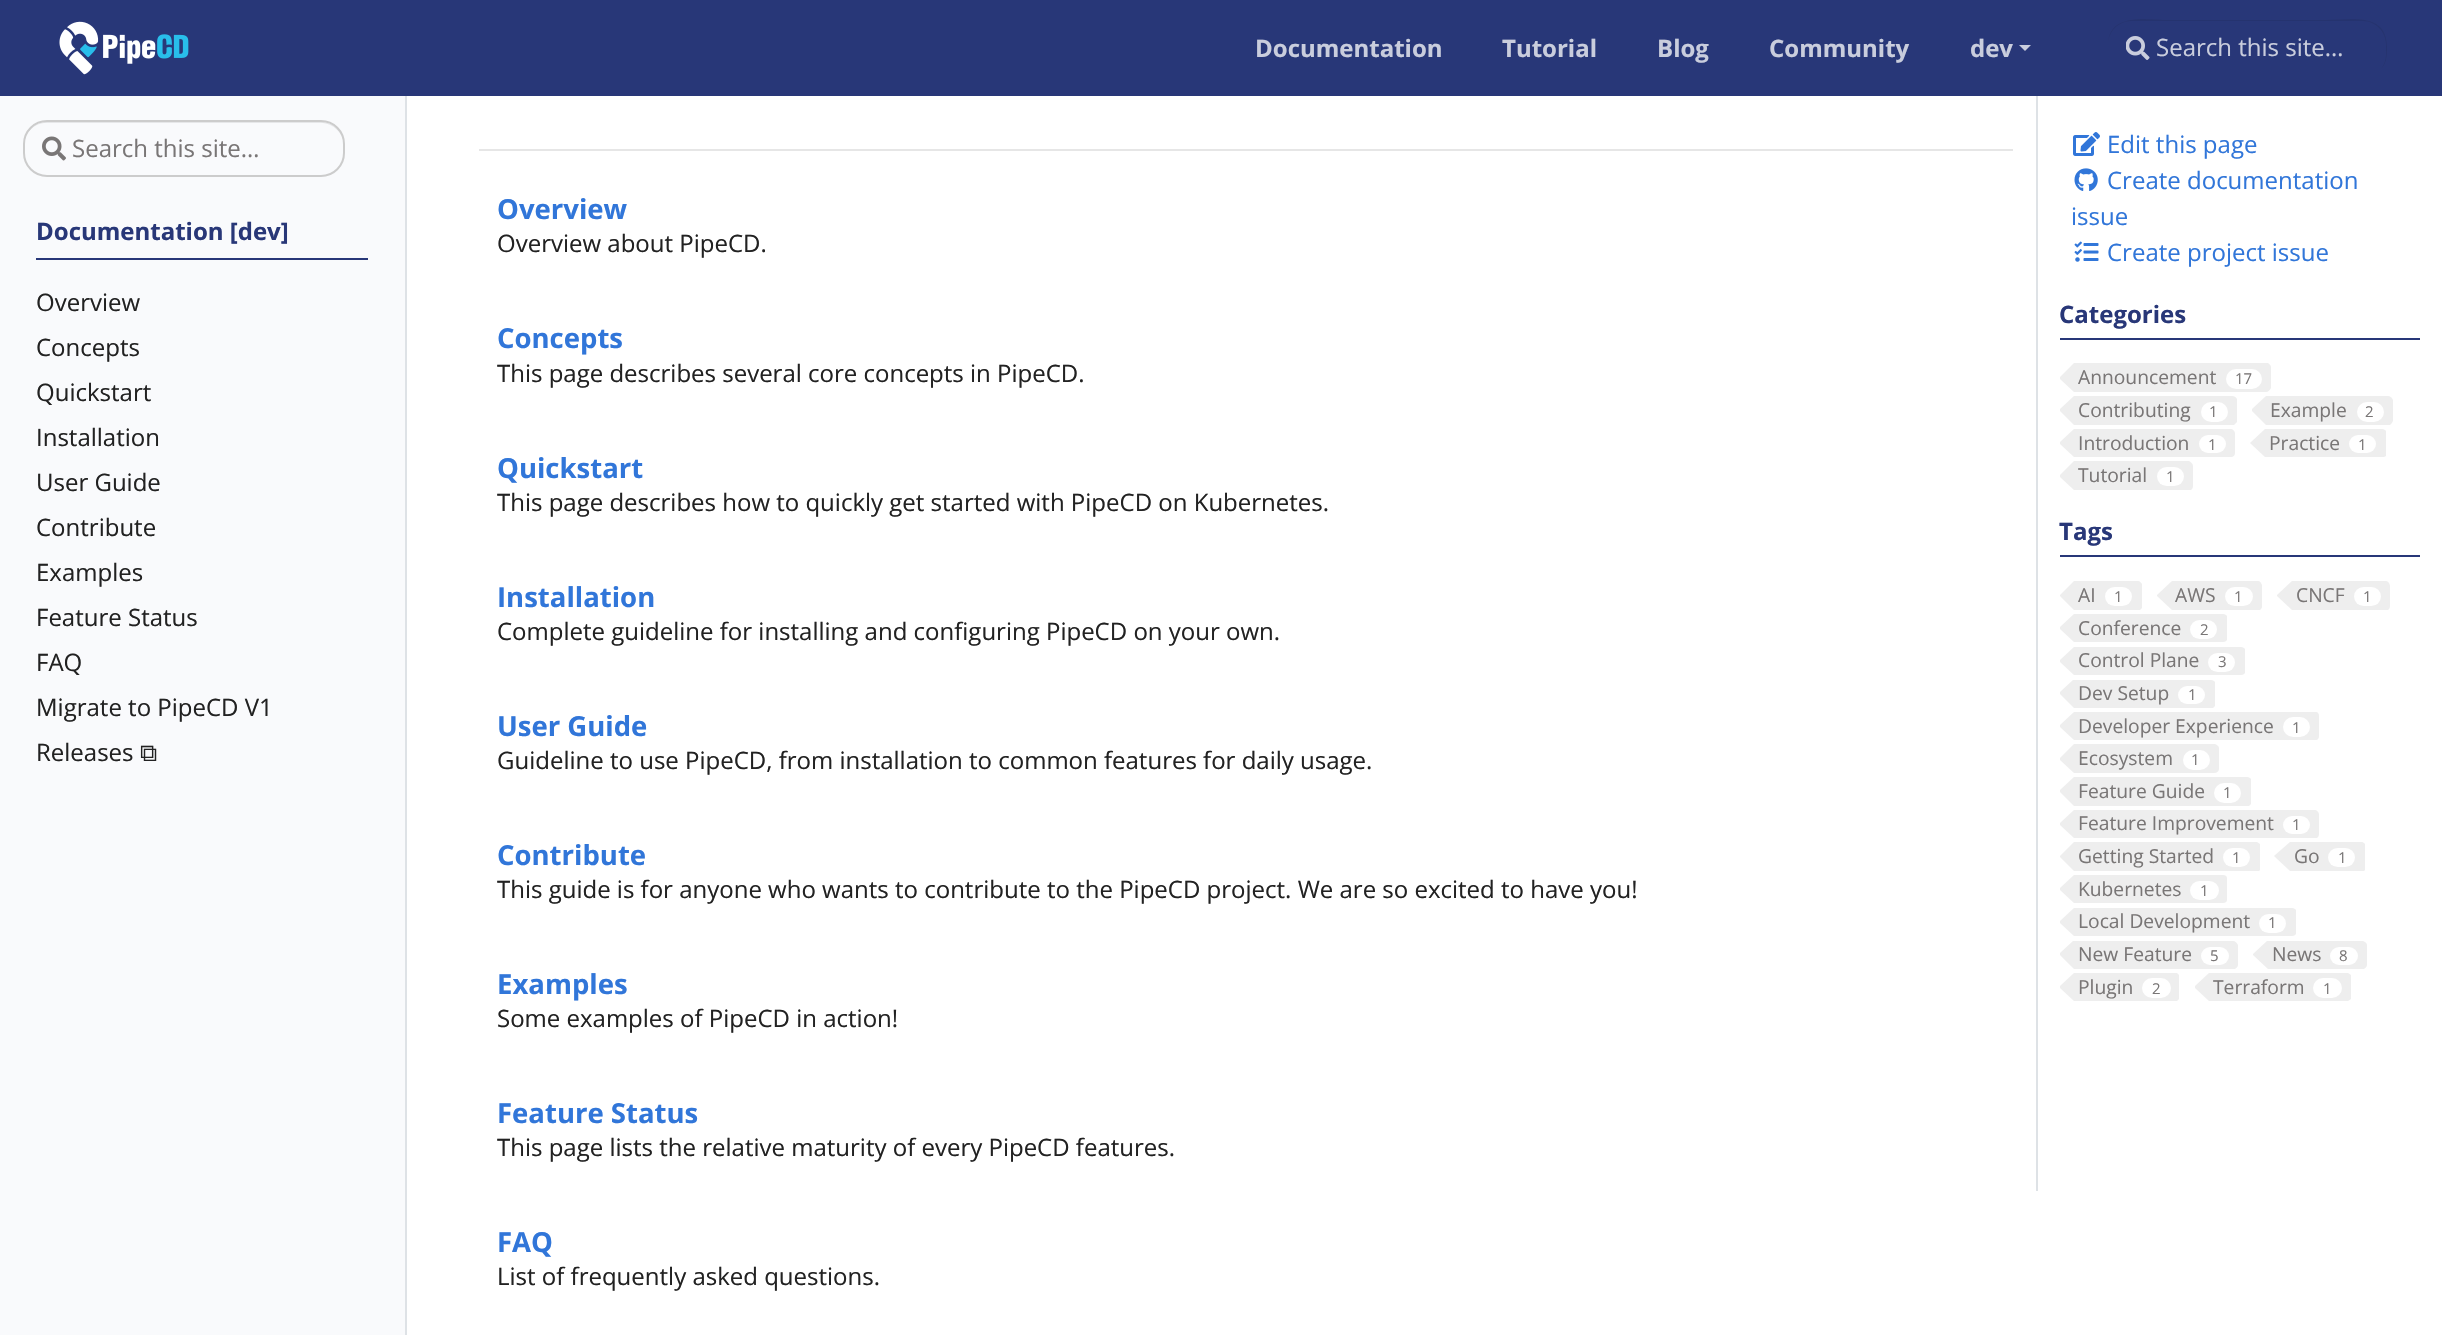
#include "include/core/SkBlurTypes.h"
#include "include/core/SkCanvas.h"
#include "include/core/SkData.h"
#include "include/core/SkFont.h"
#include "include/core/SkFontMgr.h"
#include "include/core/SkImage.h"
#include "include/core/SkMaskFilter.h"
#include "include/core/SkPaint.h"
#include "include/core/SkPathBuilder.h"
#include "include/core/SkTextBlob.h"
#include "include/effects/SkDashPathEffect.h"
#include "include/effects/SkGradientShader.h"
#include "include/utils/SkParsePath.h"

extern sk_sp<SkFontMgr> fontMgr;

void draw(SkCanvas* canvas) {
    SkPaint p;
    p.setAntiAlias(true);
    auto font = [&](const char* family, int weight, float size, bool italic = false) {
        SkFontStyle style(weight, SkFontStyle::kNormal_Width,
            italic ? SkFontStyle::kItalic_Slant : SkFontStyle::kUpright_Slant);
        SkFont result(fontMgr->matchFamilyStyle(family, style), size);
        result.setSubpixel(true);
        return result;
    };
    auto drawPhoto = [&](const char* path, float l, float t, float r, float b) {
        auto image = SkImages::DeferredFromEncodedData(SkData::MakeFromFileName(path));
        canvas->drawImageRect(image, SkRect::MakeLTRB(l, t, r, b), SkSamplingOptions());
    };
    canvas->clear(0xFFFFFFFF);
    p.setColor(0xFF283778);
    canvas->drawRect(SkRect::MakeLTRB(0, 0, 2442, 96), p);
    drawPhoto("media/1.png", 59, 21, 189, 75);
    auto font1 = font("Open Sans", 700, 24);
    p.setColor(0xFFC9CDDD);
    {
        const struct { const char* s; float x, y; } items[] = {
            {"Documentation", 1255, 57},
            {"Tutorial", 1502, 57},
            {"Blog", 1657, 57},
            {"Community", 1769, 57},
            {"dev", 1970, 57},
        };
        for (auto [s, x, y] : items) {
            canvas->drawString(s, x, y, font1, p);
        }
    }
    canvas->drawPath(SkPathBuilder().moveTo(2019, 45).lineTo(2031, 45).lineTo(2025, 51).close().detach(), p);
    p.setColor(0xFF25336F);
    canvas->drawPath(SkPathBuilder().moveTo(2132, 21).lineTo(2362, 21).cubicTo(2376, 21, 2386, 32, 2386, 45).lineTo(2386, 54).cubicTo(2386, 60, 2384, 65, 2381, 69).cubicTo(2387, 63, 2387, 55, 2387, 47).cubicTo(2387, 11, 2349, 20, 2324, 20).lineTo(2170, 20).cubicTo(2150, 20, 2108, 11, 2108, 45).cubicTo(2108, 32, 2118, 21, 2132, 21).close().detach(), p);
    drawPhoto("media/2.png", 2126, 36, 2150, 60);
    auto font2 = font("Open Sans", 400, 24);
    p.setColor(0xFFC9CDDD);
    canvas->drawString("Search this site…", 2156, 56, font2, p);
    p.setColor(0xFFF9FAFC);
    canvas->drawRect(SkRect::MakeLTRB(0, 96, 405, 1335), p);
    p.setColor(0xFFDEE2E6);
    canvas->drawRect(SkRect::MakeLTRB(405, 96, 407, 1335), p);
    p.setColor(0xFFE6E7E9);
    canvas->drawPath(SkPathBuilder().moveTo(46, 123).lineTo(321, 123).cubicTo(333, 123, 344, 133, 344, 146).lineTo(344, 145).cubicTo(344, 132, 334, 122, 321, 122).lineTo(47, 122).cubicTo(34, 122, 24, 132, 24, 145).lineTo(24, 146).cubicTo(24, 133, 34, 123, 46, 123).close().detach(), p);
    p.setStyle(SkPaint::kStroke_Style);
    p.setStrokeWidth(2);
    p.setColor(0xFFCCCCCC);
    canvas->drawRoundRect(SkRect::MakeLTRB(24, 121, 344, 176), 23, 23, p);
    drawPhoto("media/3.png", 42, 136, 66, 161);
    p.setStyle(SkPaint::kFill_Style);
    p.setColor(0xFF797676);
    canvas->drawString("Search this site…", 72, 157, font2, p);
    p.setColor(0xFF283778);
    canvas->drawRect(SkRect::MakeLTRB(36, 258, 368, 260), p);
    canvas->drawString("Documentation [dev]", 36, 240, font1, p);
    p.setColor(0xFF222222);
    {
        const struct { const char* s; float x, y; } items[] = {
            {"Overview", 36, 311},
            {"Concepts", 36, 356},
            {"Quickstart", 36, 401},
            {"Installation", 36, 446},
            {"User Guide", 36, 491},
            {"Contribute", 36, 536},
            {"Examples", 36, 581},
            {"Feature Status", 36, 626},
            {"FAQ", 36, 671},
            {"Migrate to PipeCD V1", 36, 716},
            {"Releases", 36, 761},
        };
        for (auto [s, x, y] : items) {
            canvas->drawString(s, x, y, font2, p);
        }
    }
    auto font3 = font("FreeSerif", 400, 24);
    canvas->drawString("⧉", 140, 761, font3, p);
    p.setColor(0xFFE6E6E6);
    canvas->drawRect(SkRect::MakeLTRB(479, 149, 2013, 151), p);
    auto font4 = font("Open Sans", 700, 27.5f);
    p.setColor(0xFF3176D9);
    canvas->drawString("Overview", 497, 219, font4, p);
    p.setColor(0xFF222222);
    canvas->drawString("Overview about PipeCD.", 497, 252, font2, p);
    p.setColor(0xFF3176D9);
    canvas->drawString("Concepts", 497, 348, font4, p);
    p.setColor(0xFF222222);
    canvas->drawString("This page describes several core concepts in PipeCD.", 497, 382, font2, p);
    p.setColor(0xFF3176D9);
    canvas->drawString("Quickstart", 497, 478, font4, p);
    p.setColor(0xFF222222);
    canvas->drawString("This page describes how to quickly get started with PipeCD on Kubernetes.", 497, 511, font2, p);
    p.setColor(0xFF3176D9);
    canvas->drawString("Installation", 497, 607, font4, p);
    p.setColor(0xFF222222);
    canvas->drawString("Complete guideline for installing and configuring PipeCD on your own.", 497, 640, font2, p);
    p.setColor(0xFF3176D9);
    canvas->drawString("User Guide", 497, 736, font4, p);
    p.setColor(0xFF222222);
    canvas->drawString("Guideline to use PipeCD, from installation to common features for daily usage.", 497, 769, font2, p);
    p.setColor(0xFF3176D9);
    canvas->drawString("Contribute", 497, 865, font4, p);
    p.setColor(0xFF222222);
    canvas->drawString("This guide is for anyone who wants to contribute to the PipeCD project. We are so excited to have you!", 497, 898, font2, p);
    p.setColor(0xFF3176D9);
    canvas->drawString("Examples", 497, 994, font4, p);
    p.setColor(0xFF222222);
    canvas->drawString("Some examples of PipeCD in action!", 497, 1027, font2, p);
    p.setColor(0xFF3176D9);
    canvas->drawString("Feature Status", 497, 1123, font4, p);
    p.setColor(0xFF222222);
    canvas->drawString("This page lists the relative maturity of every PipeCD features.", 497, 1156, font2, p);
    p.setColor(0xFF3176D9);
    canvas->drawString("FAQ", 497, 1252, font4, p);
    p.setColor(0xFF222222);
    canvas->drawString("List of frequently asked questions.", 497, 1285, font2, p);
    p.setColor(0xFFDEE2E6);
    canvas->drawRect(SkRect::MakeLTRB(2036, 96, 2038, 1191), p);
    drawPhoto("media/4.png", 2073, 132, 2100, 156);
    p.setColor(0xFF3176D9);
    canvas->drawString("Edit this page", 2107, 153, font2, p);
    drawPhoto("media/5.png", 2074, 168, 2098, 191);
    canvas->drawString("Create documentation", 2107, 189, font2, p);
    canvas->drawString("issue", 2071, 225, font2, p);
    drawPhoto("media/6.png", 2074, 241, 2099, 262);
    canvas->drawString("Create project issue", 2107, 261, font2, p);
    p.setColor(0xFF283778);
    canvas->drawRect(SkRect::MakeLTRB(2060, 338, 2420, 340), p);
    canvas->drawString("Categories", 2059, 323, font1, p);
    p.setColor(0xFFEEEEEE);
    canvas->drawPath(SkPathBuilder().moveTo(2060, 379).lineTo(2060, 377).lineTo(2074, 363).lineTo(2268, 363).cubicTo(2269, 364, 2271, 365, 2271, 367).lineTo(2271, 388).cubicTo(2270, 390, 2268, 392, 2266, 392).lineTo(2074, 392).close().detach(), p);
    auto font5 = font("Open Sans", 400, 19.25f);
    p.setColor(0xFF797676);
    canvas->drawString("Announcement", 2078, 384, font5, p);
    p.setColor(0xFFFFFFFF);
    canvas->drawRoundRect(SkRect::MakeLTRB(2226, 369, 2262, 389), 10, 10, p);
    auto font6 = font("Open Sans", 400, 15);
    p.setColor(0xFF797676);
    canvas->drawString("17", 2235, 384, font6, p);
    p.setColor(0xFFEEEEEE);
    canvas->drawPath(SkPathBuilder().moveTo(2074, 396).lineTo(2232, 396).cubicTo(2234, 396, 2236, 397, 2237, 399).lineTo(2237, 422).cubicTo(2236, 423, 2235, 424, 2234, 425).lineTo(2074, 425).lineTo(2060, 411).lineTo(2060, 409).close().detach(), p);
    p.setColor(0xFF797676);
    canvas->drawString("Contributing", 2078, 417, font5, p);
    p.setColor(0xFFFFFFFF);
    canvas->drawRoundRect(SkRect::MakeLTRB(2201, 402, 2228, 422), 10, 10, p);
    p.setColor(0xFF797676);
    canvas->drawString("1", 2209, 417, font6, p);
    p.setColor(0xFFEEEEEE);
    canvas->drawPath(SkPathBuilder().moveTo(2266, 396).lineTo(2388, 396).cubicTo(2390, 396, 2392, 398, 2393, 400).lineTo(2393, 421).cubicTo(2392, 423, 2391, 424, 2390, 425).lineTo(2266, 425).lineTo(2252, 411).lineTo(2252, 409).close().detach(), p);
    p.setColor(0xFF797676);
    canvas->drawString("Example", 2270, 417, font5, p);
    p.setColor(0xFFFFFFFF);
    canvas->drawRoundRect(SkRect::MakeLTRB(2357, 402, 2384, 422), 10, 10, p);
    p.setColor(0xFF797676);
    canvas->drawString("2", 2365, 417, font6, p);
    p.setColor(0xFFEEEEEE);
    canvas->drawPath(SkPathBuilder().moveTo(2074, 429).lineTo(2230, 429).cubicTo(2233, 429, 2235, 431, 2235, 434).lineTo(2235, 453).cubicTo(2235, 455, 2234, 456, 2232, 457).lineTo(2074, 457).lineTo(2060, 444).lineTo(2060, 442).close().detach(), p);
    p.setColor(0xFF797676);
    canvas->drawString("Introduction", 2078, 450, font5, p);
    p.setColor(0xFFFFFFFF);
    canvas->drawRoundRect(SkRect::MakeLTRB(2199, 435, 2226, 453), 9, 9, p);
    p.setColor(0xFF797676);
    canvas->drawString("1", 2208, 450, font6, p);
    p.setColor(0xFFEEEEEE);
    canvas->drawPath(SkPathBuilder().moveTo(2265, 429).lineTo(2382, 429).cubicTo(2384, 429, 2385, 430, 2386, 431).lineTo(2386, 456).lineTo(2384, 457).lineTo(2265, 457).lineTo(2250, 443).close().detach(), p);
    p.setColor(0xFF797676);
    canvas->drawString("Practice", 2269, 450, font5, p);
    p.setColor(0xFFFFFFFF);
    canvas->drawRoundRect(SkRect::MakeLTRB(2349, 435, 2376, 453), 9, 9, p);
    p.setColor(0xFF797676);
    canvas->drawString("1", 2358, 450, font6, p);
    p.setColor(0xFFEEEEEE);
    canvas->drawPath(SkPathBuilder().moveTo(2060, 477).lineTo(2060, 475).lineTo(2074, 461).lineTo(2189, 461).cubicTo(2191, 462, 2193, 464, 2193, 466).lineTo(2193, 486).cubicTo(2193, 488, 2192, 489, 2191, 490).lineTo(2074, 490).close().detach(), p);
    p.setColor(0xFF797676);
    canvas->drawString("Tutorial", 2078, 482, font5, p);
    p.setColor(0xFFFFFFFF);
    canvas->drawRoundRect(SkRect::MakeLTRB(2157, 467, 2184, 486), 9.5f, 9.5f, p);
    p.setColor(0xFF797676);
    canvas->drawString("1", 2166, 482, font6, p);
    p.setColor(0xFF283778);
    canvas->drawRect(SkRect::MakeLTRB(2060, 555, 2420, 557), p);
    canvas->drawString("Tags", 2059, 540, font1, p);
    p.setColor(0xFFEEEEEE);
    canvas->drawPath(SkPathBuilder().moveTo(2060, 596).lineTo(2060, 595).lineTo(2074, 581).lineTo(2138, 581).cubicTo(2140, 581, 2141, 583, 2142, 584).lineTo(2142, 608).lineTo(2140, 610).lineTo(2074, 610).close().detach(), p);
    p.setColor(0xFF797676);
    canvas->drawString("AI", 2078, 602, font5, p);
    p.setColor(0xFFFFFFFF);
    canvas->drawRoundRect(SkRect::MakeLTRB(2105, 587, 2132, 606), 9.5f, 9.5f, p);
    p.setColor(0xFF797676);
    canvas->drawString("1", 2114, 602, font6, p);
    p.setColor(0xFFEEEEEE);
    canvas->drawPath(SkPathBuilder().moveTo(2157, 596).lineTo(2157, 595).lineTo(2172, 581).lineTo(2258, 581).cubicTo(2260, 581, 2261, 583, 2262, 585).lineTo(2262, 607).cubicTo(2262, 608, 2261, 609, 2260, 610).lineTo(2172, 610).close().detach(), p);
    p.setColor(0xFF797676);
    canvas->drawString("AWS", 2175, 602, font5, p);
    p.setColor(0xFFFFFFFF);
    canvas->drawRoundRect(SkRect::MakeLTRB(2225, 587, 2253, 606), 9.5f, 9.5f, p);
    p.setColor(0xFF797676);
    canvas->drawString("1", 2234, 602, font6, p);
    p.setColor(0xFFEEEEEE);
    canvas->drawPath(SkPathBuilder().moveTo(2277, 596).lineTo(2277, 595).lineTo(2292, 581).lineTo(2386, 581).cubicTo(2388, 581, 2390, 584, 2390, 586).lineTo(2390, 606).cubicTo(2390, 608, 2389, 609, 2388, 610).lineTo(2292, 610).close().detach(), p);
    p.setColor(0xFF797676);
    canvas->drawString("CNCF", 2296, 602, font5, p);
    p.setColor(0xFFFFFFFF);
    canvas->drawRoundRect(SkRect::MakeLTRB(2354, 587, 2381, 606), 9.5f, 9.5f, p);
    p.setColor(0xFF797676);
    canvas->drawString("1", 2363, 602, font6, p);
    p.setColor(0xFFEEEEEE);
    canvas->drawPath(SkPathBuilder().moveTo(2074, 614).lineTo(2223, 614).cubicTo(2225, 614, 2226, 615, 2227, 616).lineTo(2227, 640).cubicTo(2226, 641, 2225, 642, 2223, 642).lineTo(2074, 642).lineTo(2060, 629).lineTo(2060, 627).close().detach(), p);
    p.setColor(0xFF797676);
    canvas->drawString("Conference", 2078, 635, font5, p);
    p.setColor(0xFFFFFFFF);
    canvas->drawRoundRect(SkRect::MakeLTRB(2190, 620, 2217, 639), 9.5f, 9.5f, p);
    p.setColor(0xFF797676);
    canvas->drawString("2", 2200, 635, font6, p);
    p.setColor(0xFFEEEEEE);
    canvas->drawPath(SkPathBuilder().moveTo(2074, 647).lineTo(2241, 647).cubicTo(2243, 647, 2244, 648, 2245, 649).lineTo(2245, 673).cubicTo(2244, 674, 2243, 675, 2241, 675).lineTo(2074, 675).lineTo(2060, 662).lineTo(2060, 660).close().detach(), p);
    p.setColor(0xFF797676);
    canvas->drawString("Control Plane", 2078, 667, font5, p);
    p.setColor(0xFFFFFFFF);
    canvas->drawRoundRect(SkRect::MakeLTRB(2208, 653, 2235, 672), 9.5f, 9.5f, p);
    p.setColor(0xFF797676);
    canvas->drawString("3", 2218, 667, font6, p);
    p.setColor(0xFFEEEEEE);
    canvas->drawPath(SkPathBuilder().moveTo(2073, 680).lineTo(2211, 680).cubicTo(2213, 680, 2214, 681, 2215, 682).lineTo(2215, 706).lineTo(2213, 708).lineTo(2074, 708).lineTo(2060, 694).lineTo(2060, 692).close().detach(), p);
    p.setColor(0xFF797676);
    canvas->drawString("Dev Setup", 2078, 700, font5, p);
    p.setColor(0xFFFFFFFF);
    canvas->drawRoundRect(SkRect::MakeLTRB(2178, 686, 2205, 704), 9, 9, p);
    p.setColor(0xFF797676);
    canvas->drawString("1", 2188, 700, font6, p);
    p.setColor(0xFFEEEEEE);
    canvas->drawPath(SkPathBuilder().moveTo(2060, 727).lineTo(2060, 725).lineTo(2074, 712).lineTo(2316, 712).cubicTo(2318, 712, 2319, 714, 2319, 716).lineTo(2319, 736).cubicTo(2319, 738, 2318, 740, 2316, 740).lineTo(2074, 740).close().detach(), p);
    p.setColor(0xFF797676);
    canvas->drawString("Developer Experience", 2078, 733, font5, p);
    p.setColor(0xFFFFFFFF);
    canvas->drawRoundRect(SkRect::MakeLTRB(2283, 717, 2310, 737), 10, 10, p);
    p.setColor(0xFF797676);
    canvas->drawString("1", 2292, 733, font6, p);
    p.setColor(0xFFEEEEEE);
    canvas->drawPath(SkPathBuilder().moveTo(2060, 760).lineTo(2060, 758).lineTo(2074, 744).lineTo(2215, 744).cubicTo(2217, 745, 2219, 746, 2219, 748).lineTo(2219, 769).cubicTo(2219, 771, 2217, 773, 2214, 773).lineTo(2074, 773).close().detach(), p);
    p.setColor(0xFF797676);
    canvas->drawString("Ecosystem", 2078, 765, font5, p);
    p.setColor(0xFFFFFFFF);
    canvas->drawRoundRect(SkRect::MakeLTRB(2183, 750, 2210, 770), 10, 10, p);
    p.setColor(0xFF797676);
    canvas->drawString("1", 2191, 765, font6, p);
    p.setColor(0xFFEEEEEE);
    canvas->drawPath(SkPathBuilder().moveTo(2074, 777).lineTo(2247, 777).cubicTo(2249, 777, 2250, 778, 2251, 779).lineTo(2251, 804).lineTo(2249, 806).lineTo(2074, 806).lineTo(2060, 792).lineTo(2060, 790).close().detach(), p);
    p.setColor(0xFF797676);
    canvas->drawString("Feature Guide", 2078, 798, font5, p);
    p.setColor(0xFFFFFFFF);
    canvas->drawRoundRect(SkRect::MakeLTRB(2214, 783, 2241, 803), 10, 10, p);
    p.setColor(0xFF797676);
    canvas->drawString("1", 2223, 798, font6, p);
    p.setColor(0xFFEEEEEE);
    canvas->drawPath(SkPathBuilder().moveTo(2074, 810).lineTo(2314, 810).cubicTo(2317, 810, 2319, 812, 2319, 815).lineTo(2319, 834).cubicTo(2319, 836, 2318, 837, 2317, 838).lineTo(2074, 838).lineTo(2060, 825).lineTo(2060, 823).close().detach(), p);
    p.setColor(0xFF797676);
    canvas->drawString("Feature Improvement", 2078, 830, font5, p);
    p.setColor(0xFFFFFFFF);
    canvas->drawRoundRect(SkRect::MakeLTRB(2283, 816, 2310, 834), 9, 9, p);
    p.setColor(0xFF797676);
    canvas->drawString("1", 2292, 830, font6, p);
    p.setColor(0xFFEEEEEE);
    canvas->drawPath(SkPathBuilder().moveTo(2060, 857).lineTo(2060, 856).lineTo(2074, 842).lineTo(2257, 842).lineTo(2260, 844).lineTo(2260, 870).lineTo(2259, 871).lineTo(2074, 871).close().detach(), p);
    p.setColor(0xFF797676);
    canvas->drawString("Getting Started", 2078, 863, font5, p);
    p.setColor(0xFFFFFFFF);
    canvas->drawRoundRect(SkRect::MakeLTRB(2223, 848, 2250, 867), 9.5f, 9.5f, p);
    p.setColor(0xFF797676);
    canvas->drawString("1", 2232, 863, font6, p);
    p.setColor(0xFFEEEEEE);
    canvas->drawPath(SkPathBuilder().moveTo(2365, 870).lineTo(2364, 871).lineTo(2290, 871).lineTo(2274, 856).lineTo(2290, 842).lineTo(2362, 842).cubicTo(2363, 842, 2364, 843, 2365, 844).close().detach(), p);
    p.setColor(0xFF797676);
    canvas->drawString("Go", 2294, 863, font5, p);
    p.setColor(0xFFFFFFFF);
    canvas->drawRoundRect(SkRect::MakeLTRB(2328, 848, 2355, 867), 9.5f, 9.5f, p);
    p.setColor(0xFF797676);
    canvas->drawString("1", 2338, 863, font6, p);
    p.setColor(0xFFEEEEEE);
    canvas->drawPath(SkPathBuilder().moveTo(2074, 875).lineTo(2223, 875).cubicTo(2225, 875, 2227, 876, 2227, 878).lineTo(2227, 900).cubicTo(2227, 902, 2225, 903, 2223, 903).lineTo(2074, 903).lineTo(2060, 890).lineTo(2060, 888).close().detach(), p);
    p.setColor(0xFF797676);
    canvas->drawString("Kubernetes", 2078, 896, font5, p);
    p.setColor(0xFFFFFFFF);
    canvas->drawRoundRect(SkRect::MakeLTRB(2190, 881, 2219, 900), 9.5f, 9.5f, p);
    p.setColor(0xFF797676);
    canvas->drawString("1", 2200, 896, font6, p);
    p.setColor(0xFFEEEEEE);
    canvas->drawPath(SkPathBuilder().moveTo(2074, 908).lineTo(2292, 908).cubicTo(2294, 908, 2295, 909, 2296, 910).lineTo(2296, 934).cubicTo(2295, 935, 2294, 936, 2292, 936).lineTo(2074, 936).lineTo(2060, 923).lineTo(2060, 921).close().detach(), p);
    p.setColor(0xFF797676);
    canvas->drawString("Local Development", 2078, 928, font5, p);
    p.setColor(0xFFFFFFFF);
    canvas->drawRoundRect(SkRect::MakeLTRB(2259, 914, 2286, 933), 9.5f, 9.5f, p);
    p.setColor(0xFF797676);
    canvas->drawString("1", 2268, 928, font6, p);
    p.setColor(0xFFEEEEEE);
    canvas->drawPath(SkPathBuilder().moveTo(2073, 941).lineTo(2233, 941).cubicTo(2235, 941, 2237, 943, 2238, 945).lineTo(2238, 965).cubicTo(2238, 967, 2236, 968, 2235, 969).lineTo(2074, 969).lineTo(2060, 955).lineTo(2060, 953).close().detach(), p);
    p.setColor(0xFF797676);
    canvas->drawString("New Feature", 2078, 961, font5, p);
    p.setColor(0xFFFFFFFF);
    canvas->drawRoundRect(SkRect::MakeLTRB(2201, 947, 2229, 965), 9, 9, p);
    p.setColor(0xFF797676);
    canvas->drawString("5", 2210, 961, font6, p);
    p.setColor(0xFFEEEEEE);
    canvas->drawPath(SkPathBuilder().moveTo(2267, 941).lineTo(2362, 941).cubicTo(2364, 941, 2367, 943, 2367, 945).lineTo(2367, 965).cubicTo(2367, 967, 2365, 968, 2364, 969).lineTo(2268, 969).lineTo(2253, 955).lineTo(2253, 954).close().detach(), p);
    p.setColor(0xFF797676);
    canvas->drawString("News", 2272, 961, font5, p);
    p.setColor(0xFFFFFFFF);
    canvas->drawRoundRect(SkRect::MakeLTRB(2330, 947, 2358, 965), 9, 9, p);
    p.setColor(0xFF797676);
    canvas->drawString("8", 2339, 961, font6, p);
    p.setColor(0xFFEEEEEE);
    canvas->drawPath(SkPathBuilder().moveTo(2060, 988).lineTo(2060, 986).lineTo(2074, 973).lineTo(2177, 973).lineTo(2179, 975).lineTo(2179, 999).lineTo(2177, 1001).lineTo(2074, 1001).close().detach(), p);
    p.setColor(0xFF797676);
    canvas->drawString("Plugin", 2078, 994, font5, p);
    p.setColor(0xFFFFFFFF);
    canvas->drawRoundRect(SkRect::MakeLTRB(2142, 978, 2171, 998), 10, 10, p);
    p.setColor(0xFF797676);
    canvas->drawString("2", 2152, 994, font6, p);
    p.setColor(0xFFEEEEEE);
    canvas->drawPath(SkPathBuilder().moveTo(2195, 988).lineTo(2195, 986).lineTo(2209, 973).lineTo(2348, 973).lineTo(2351, 975).lineTo(2351, 999).lineTo(2348, 1001).lineTo(2209, 1001).close().detach(), p);
    p.setColor(0xFF797676);
    canvas->drawString("Terraform", 2213, 994, font5, p);
    p.setColor(0xFFFFFFFF);
    canvas->drawRoundRect(SkRect::MakeLTRB(2313, 978, 2342, 998), 10, 10, p);
    p.setColor(0xFF797676);
    canvas->drawString("1", 2323, 994, font6, p);
}
